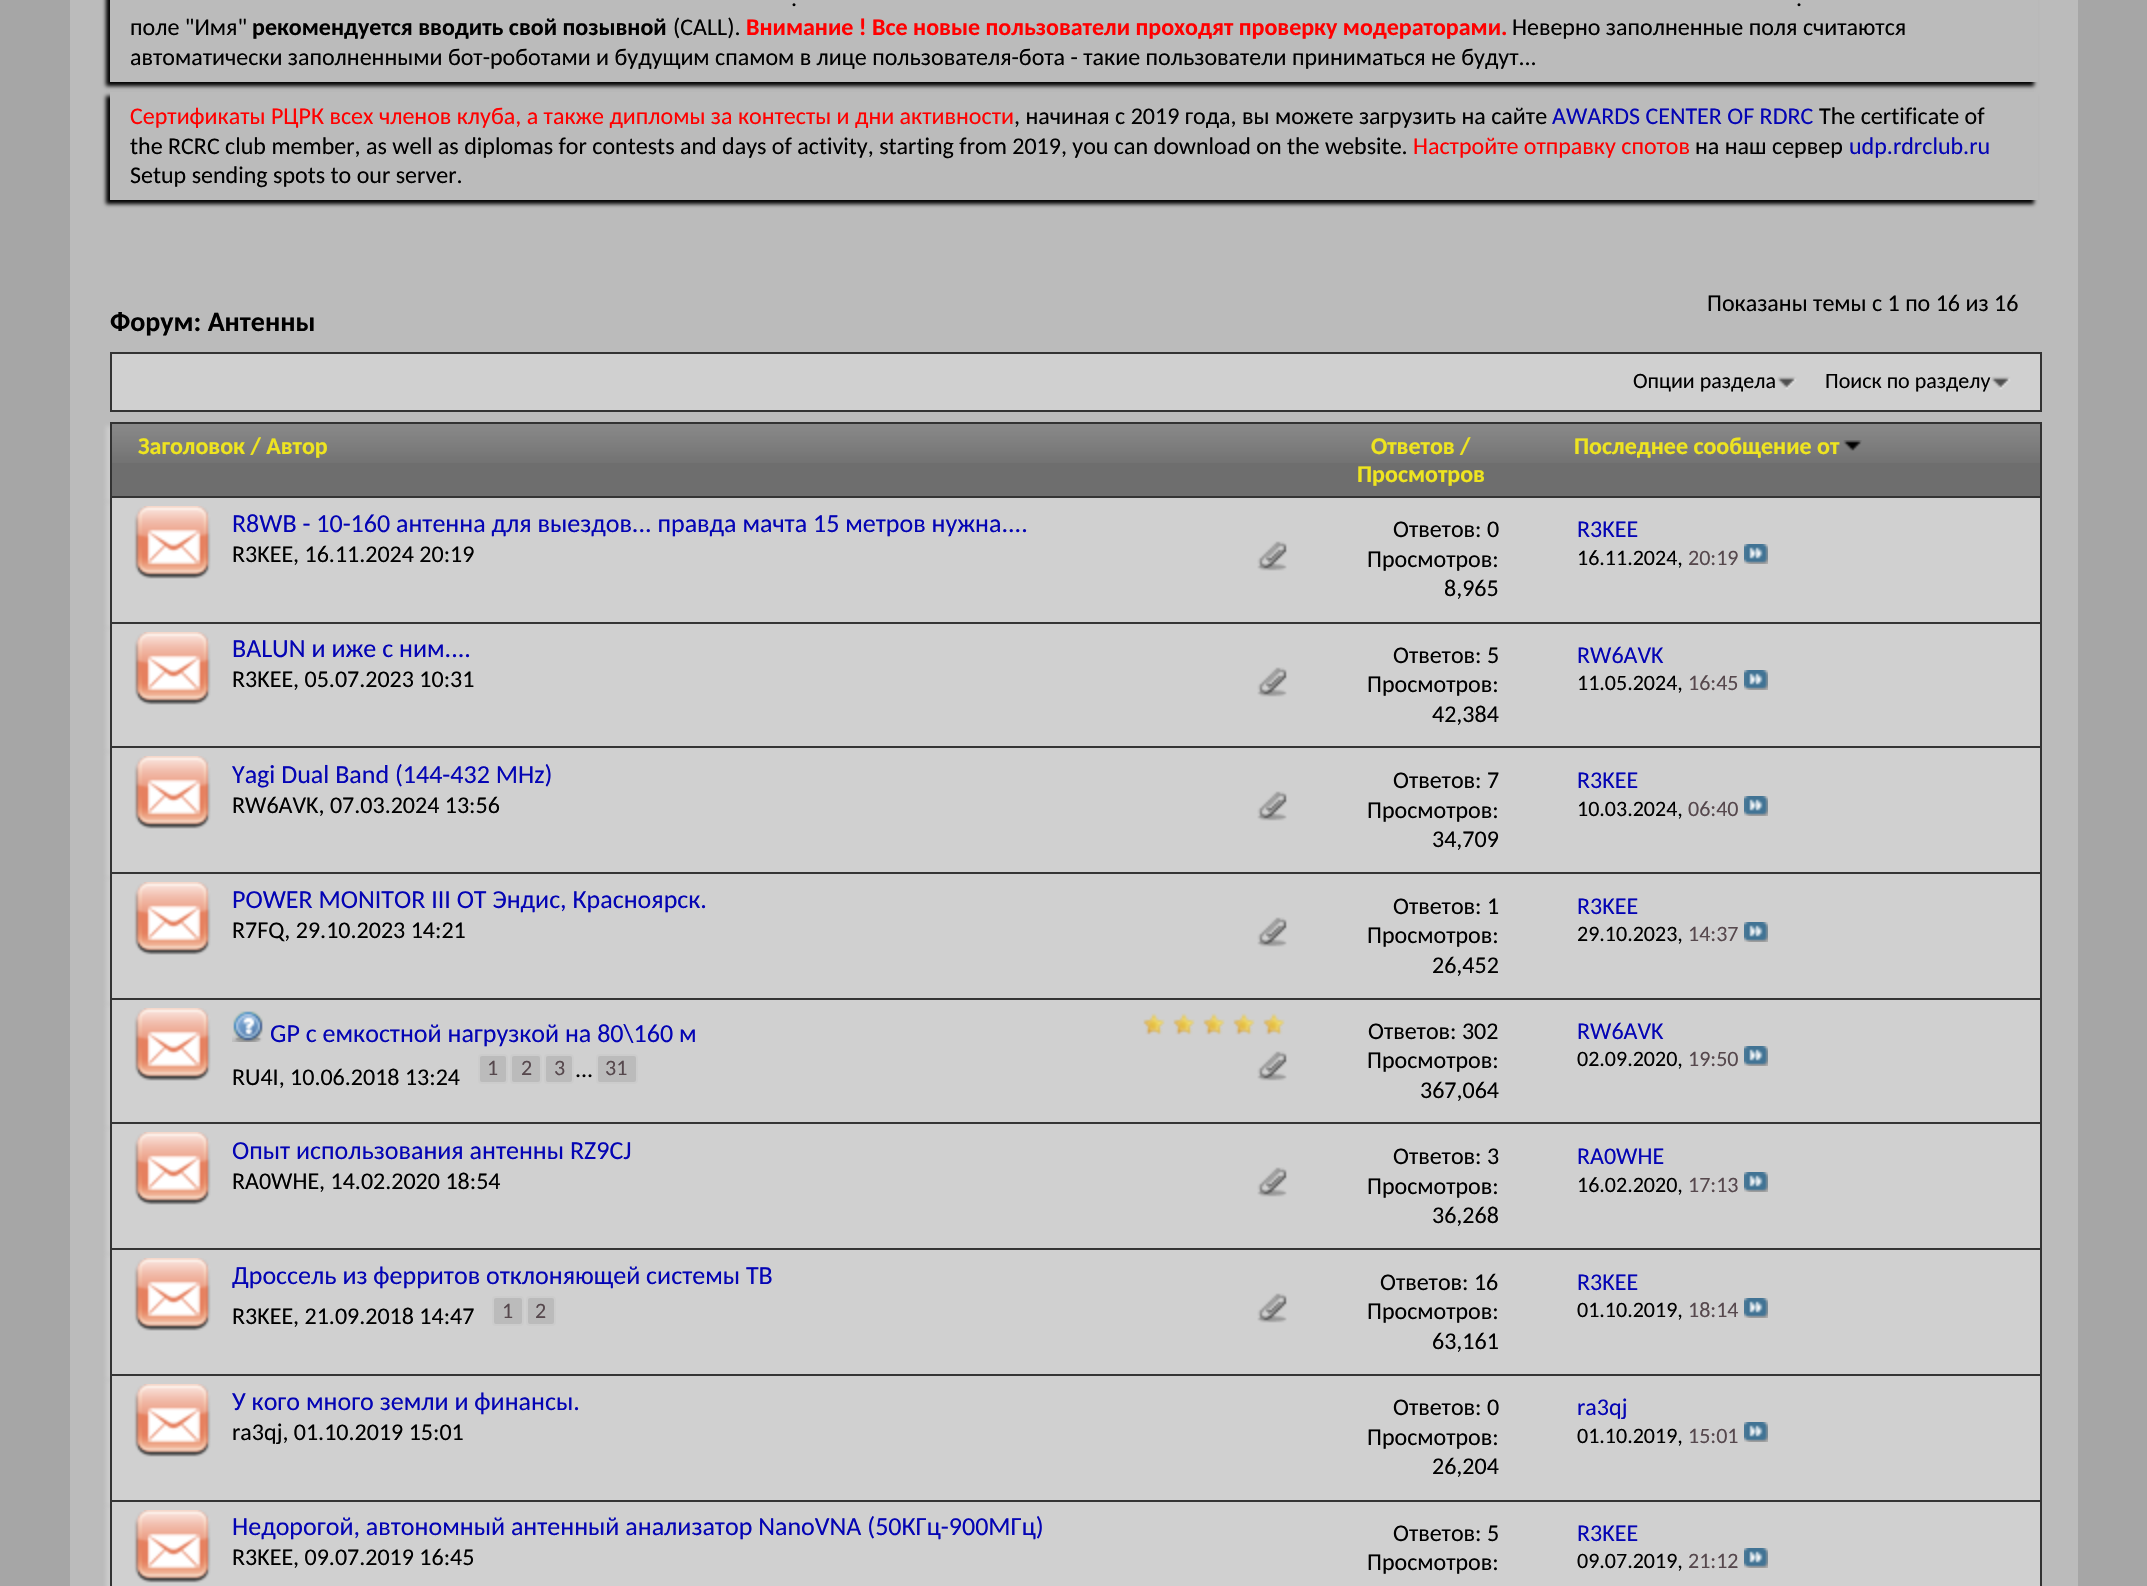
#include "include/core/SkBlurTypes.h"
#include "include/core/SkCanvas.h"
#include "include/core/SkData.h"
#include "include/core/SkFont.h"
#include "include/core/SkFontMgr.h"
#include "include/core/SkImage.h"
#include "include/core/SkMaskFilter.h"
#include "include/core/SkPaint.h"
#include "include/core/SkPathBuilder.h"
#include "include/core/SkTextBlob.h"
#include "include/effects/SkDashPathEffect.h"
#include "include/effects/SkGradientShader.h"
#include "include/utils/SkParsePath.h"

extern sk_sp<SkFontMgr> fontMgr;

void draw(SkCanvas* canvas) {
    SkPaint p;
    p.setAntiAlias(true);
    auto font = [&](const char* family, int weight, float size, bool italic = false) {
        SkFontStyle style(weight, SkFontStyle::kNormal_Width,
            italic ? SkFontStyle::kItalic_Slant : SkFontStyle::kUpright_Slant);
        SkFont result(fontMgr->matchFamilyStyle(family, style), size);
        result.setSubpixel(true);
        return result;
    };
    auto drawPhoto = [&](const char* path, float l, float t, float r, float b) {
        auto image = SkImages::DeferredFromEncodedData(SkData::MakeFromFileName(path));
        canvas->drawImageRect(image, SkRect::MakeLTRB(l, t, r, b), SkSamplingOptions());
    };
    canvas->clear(0xFFA6A6A6);
    p.setColor(0xFFBBBBBB);
    canvas->drawRect(SkRect::MakeLTRB(70, 0, 2078, 1586), p);
    canvas->save();
    canvas->clipPath(SkPathBuilder(SkPathFillType::kEvenOdd).moveTo(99, 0).lineTo(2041, 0).lineTo(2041, 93).lineTo(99, 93).close().moveTo(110, -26).lineTo(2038, -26).lineTo(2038, 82).lineTo(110, 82).close().detach(), true);
    p.setColor(0xFF000000);
    p.setMaskFilter(SkMaskFilter::MakeBlur(kNormal_SkBlurStyle, 2));
    canvas->drawRect(SkRect::MakeLTRB(106, -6, 2034, 86), p);
    p.setMaskFilter(nullptr);
    canvas->restore();
    auto font1 = font("Carlito", 400, 24);
    {
        const struct { const char* s; float x, y; } items[] = {
            {".", 791, 6},
            {".", 1796, 6},
            {"поле \"Имя\"", 130, 35},
        };
        for (auto [s, x, y] : items) {
            canvas->drawString(s, x, y, font1, p);
        }
    }
    auto font2 = font("Carlito", 700, 24);
    canvas->drawString("рекомендуется вводить свой позывной", 252, 35, font2, p);
    canvas->drawString("(CALL).", 673, 35, font1, p);
    p.setColor(0xFFFF0000);
    canvas->drawString("Внимание ! Все новые пользователи проходят проверку модераторами.", 746, 35, font2, p);
    p.setColor(0xFF000000);
    canvas->drawString("Неверно заполненные поля считаются", 1512, 35, font1, p);
    canvas->drawString("автоматически заполненными бот-роботами и будущим спамом в лице пользователя-бота - такие пользователи приниматься не будут...", 130, 65, font1, p);
    canvas->save();
    canvas->clipPath(SkPathBuilder(SkPathFillType::kEvenOdd).moveTo(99, 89).lineTo(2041, 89).lineTo(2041, 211).lineTo(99, 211).close().moveTo(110, 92).lineTo(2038, 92).lineTo(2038, 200).lineTo(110, 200).close().detach(), true);
    p.setMaskFilter(SkMaskFilter::MakeBlur(kNormal_SkBlurStyle, 2));
    canvas->drawRect(SkRect::MakeLTRB(106, 96, 2034, 204), p);
    p.setMaskFilter(nullptr);
    canvas->restore();
    p.setColor(0xFFFF0000);
    canvas->drawString("Сертификаты РЦРК всех членов клуба, а также дипломы за контесты и дни активности", 130, 124, font1, p);
    p.setColor(0xFF000000);
    canvas->drawString(", начиная с 2019 года, вы можете загрузить на сайте", 1014, 124, font1, p);
    p.setColor(0xFF0404B4);
    canvas->drawString("AWARDS CENTER OF RDRC", 1552, 124, font1, p);
    p.setColor(0xFF000000);
    canvas->drawString("The certificate of", 1819, 124, font1, p);
    canvas->drawString("the RCRC club member, as well as diplomas for contests and days of activity, starting from 2019, you can download on the website.", 130, 154, font1, p);
    p.setColor(0xFFFF0000);
    canvas->drawString("Настройте отправку спотов", 1413, 154, font1, p);
    p.setColor(0xFF000000);
    canvas->drawString("на наш сервер", 1695, 154, font1, p);
    p.setColor(0xFF0404B4);
    canvas->drawString("udp.rdrclub.ru", 1849, 154, font1, p);
    p.setColor(0xFF000000);
    canvas->drawString("Setup sending spots to our server.", 130, 183, font1, p);
    canvas->drawString("Показаны темы с 1 по 16 из 16", 1707, 311, font1, p);
    auto font3 = font("Carlito", 700, 28);
    canvas->drawString("Форум: Антенны", 110, 331, font3, p);
    p.setColor(0xFFD0D0D0);
    canvas->drawRect(SkRect::MakeLTRB(111, 353, 2041, 411), p);
    p.setStyle(SkPaint::kStroke_Style);
    p.setStrokeWidth(2);
    p.setColor(0xFF333333);
    canvas->drawRect(SkRect::MakeLTRB(111, 353, 2041, 411), p);
    drawPhoto("media/1.png", 1777, 376, 1797, 390);
    auto font4 = font("Carlito", 400, 22);
    p.setStyle(SkPaint::kFill_Style);
    p.setColor(0xFF000000);
    canvas->drawString("Опции раздела", 1633, 388, font4, p);
    drawPhoto("media/1.png", 1991, 376, 2011, 390);
    canvas->drawString("Поиск по разделу", 1825, 388, font4, p);
    p.setColor(0xFFCCCCCC);
    p.setMaskFilter(SkMaskFilter::MakeBlur(kNormal_SkBlurStyle, 2));
    canvas->drawRect(SkRect::MakeLTRB(106, 426, 2038, 502), p);
    p.setMaskFilter(nullptr);
    p.setColor(0xFF6E6E6E);
    canvas->drawRect(SkRect::MakeLTRB(112, 424, 2040, 496), p);
    drawPhoto("media/2.png", 112, 424, 2040, 463);
    p.setStyle(SkPaint::kStroke_Style);
    p.setColor(0xFF333333);
    canvas->drawRect(SkRect::MakeLTRB(111, 423, 2041, 497), p);
    p.setStyle(SkPaint::kFill_Style);
    p.setColor(0xFFEEE420);
    {
        const struct { const char* s; float x, y; } items[] = {
            {"Заголовок / Автор", 138, 454},
            {"Ответов /", 1371, 454},
            {"Просмотров", 1357, 482},
            {"Последнее сообщение от", 1574, 454},
        };
        for (auto [s, x, y] : items) {
            canvas->drawString(s, x, y, font2, p);
        }
    }
    drawPhoto("media/3.png", 1843, 440, 1862, 451);
    p.setColor(0xFFCCCCCC);
    p.setMaskFilter(SkMaskFilter::MakeBlur(kNormal_SkBlurStyle, 2));
    canvas->drawRect(SkRect::MakeLTRB(106, 502, 2034, 628), p);
    p.setMaskFilter(nullptr);
    {
        const struct { float l, t, r, b; SkColor color; } items[] = {
            {112, 498, 2040, 622, 0xFFD0D0D0},
            {2040, 498, 2042, 624, 0xFF333333},
            {110, 622, 2042, 624, 0xFF333333},
            {110, 498, 112, 624, 0xFF333333},
        };
        for (auto [l, t, r, b, color] : items) {
            p.setColor(color);
            canvas->drawRect(SkRect::MakeLTRB(l, t, r, b), p);
        }
    }
    drawPhoto("media/4.png", 134, 506, 211, 579);
    auto font5 = font("Carlito", 400, 26);
    p.setColor(0xFF0404B4);
    canvas->drawString("R8WB - 10-160 антенна для выездов... правда мачта 15 метров нужна....", 232, 532, font5, p);
    p.setColor(0xFF000000);
    canvas->drawString("R3KEE, 16.11.2024 20:19", 232, 562, font1, p);
    drawPhoto("media/5.png", 1257, 541, 1287, 571);
    {
        const struct { const char* s; float x, y; } items[] = {
            {"Ответов: 0", 1393, 537},
            {"Просмотров:", 1367, 567},
            {"8,965", 1444, 596},
        };
        for (auto [s, x, y] : items) {
            canvas->drawString(s, x, y, font1, p);
        }
    }
    p.setColor(0xFF0404B4);
    canvas->drawString("R3KEE", 1577, 537, font1, p);
    p.setColor(0xFF000000);
    canvas->drawString("16.11.2024,", 1577, 565, font4, p);
    p.setColor(0xFF56484D);
    canvas->drawString("20:19", 1688, 565, font4, p);
    drawPhoto("media/6.png", 1744, 544, 1768, 564);
    p.setColor(0xFFCCCCCC);
    p.setMaskFilter(SkMaskFilter::MakeBlur(kNormal_SkBlurStyle, 2));
    canvas->drawRect(SkRect::MakeLTRB(106, 628, 2034, 752), p);
    p.setMaskFilter(nullptr);
    {
        const struct { float l, t, r, b; SkColor color; } items[] = {
            {112, 624, 2040, 746, 0xFFD0D0D0},
            {2040, 624, 2042, 748, 0xFF333333},
            {110, 746, 2042, 748, 0xFF333333},
            {110, 624, 112, 748, 0xFF333333},
        };
        for (auto [l, t, r, b, color] : items) {
            p.setColor(color);
            canvas->drawRect(SkRect::MakeLTRB(l, t, r, b), p);
        }
    }
    drawPhoto("media/4.png", 134, 632, 211, 705);
    p.setColor(0xFF0404B4);
    canvas->drawString("BALUN и иже с ним....", 232, 657, font5, p);
    p.setColor(0xFF000000);
    canvas->drawString("R3KEE, 05.07.2023 10:31", 232, 687, font1, p);
    drawPhoto("media/5.png", 1257, 667, 1287, 697);
    {
        const struct { const char* s; float x, y; } items[] = {
            {"Ответов: 5", 1393, 663},
            {"Просмотров:", 1367, 692},
            {"42,384", 1432, 722},
        };
        for (auto [s, x, y] : items) {
            canvas->drawString(s, x, y, font1, p);
        }
    }
    p.setColor(0xFF0404B4);
    canvas->drawString("RW6AVK", 1577, 663, font1, p);
    p.setColor(0xFF000000);
    canvas->drawString("11.05.2024,", 1577, 690, font4, p);
    p.setColor(0xFF56484D);
    canvas->drawString("16:45", 1688, 690, font4, p);
    drawPhoto("media/6.png", 1744, 670, 1768, 690);
    p.setColor(0xFFCCCCCC);
    p.setMaskFilter(SkMaskFilter::MakeBlur(kNormal_SkBlurStyle, 2));
    canvas->drawRect(SkRect::MakeLTRB(106, 752, 2034, 878), p);
    p.setMaskFilter(nullptr);
    {
        const struct { float l, t, r, b; SkColor color; } items[] = {
            {112, 748, 2040, 872, 0xFFD0D0D0},
            {2040, 748, 2042, 874, 0xFF333333},
            {110, 872, 2042, 874, 0xFF333333},
            {110, 748, 112, 874, 0xFF333333},
        };
        for (auto [l, t, r, b, color] : items) {
            p.setColor(color);
            canvas->drawRect(SkRect::MakeLTRB(l, t, r, b), p);
        }
    }
    drawPhoto("media/4.png", 134, 756, 211, 829);
    p.setColor(0xFF0404B4);
    canvas->drawString("Yagi Dual Band (144-432 MHz)", 232, 783, font5, p);
    p.setColor(0xFF000000);
    canvas->drawString("RW6AVK, 07.03.2024 13:56", 232, 813, font1, p);
    drawPhoto("media/5.png", 1257, 791, 1287, 821);
    {
        const struct { const char* s; float x, y; } items[] = {
            {"Ответов: 7", 1393, 788},
            {"Просмотров:", 1367, 818},
            {"34,709", 1432, 847},
        };
        for (auto [s, x, y] : items) {
            canvas->drawString(s, x, y, font1, p);
        }
    }
    p.setColor(0xFF0404B4);
    canvas->drawString("R3KEE", 1577, 788, font1, p);
    p.setColor(0xFF000000);
    canvas->drawString("10.03.2024,", 1577, 816, font4, p);
    p.setColor(0xFF56484D);
    canvas->drawString("06:40", 1688, 816, font4, p);
    drawPhoto("media/6.png", 1744, 796, 1768, 816);
    p.setColor(0xFFCCCCCC);
    p.setMaskFilter(SkMaskFilter::MakeBlur(kNormal_SkBlurStyle, 2));
    canvas->drawRect(SkRect::MakeLTRB(106, 878, 2034, 1004), p);
    p.setMaskFilter(nullptr);
    {
        const struct { float l, t, r, b; SkColor color; } items[] = {
            {112, 874, 2040, 998, 0xFFD0D0D0},
            {2040, 874, 2042, 1000, 0xFF333333},
            {110, 998, 2042, 1000, 0xFF333333},
            {110, 874, 112, 1000, 0xFF333333},
        };
        for (auto [l, t, r, b, color] : items) {
            p.setColor(color);
            canvas->drawRect(SkRect::MakeLTRB(l, t, r, b), p);
        }
    }
    drawPhoto("media/4.png", 134, 882, 211, 955);
    p.setColor(0xFF0404B4);
    canvas->drawString("POWER MONITOR III ОТ Эндис, Красноярск.", 232, 908, font5, p);
    p.setColor(0xFF000000);
    canvas->drawString("R7FQ, 29.10.2023 14:21", 232, 938, font1, p);
    drawPhoto("media/5.png", 1257, 917, 1287, 947);
    {
        const struct { const char* s; float x, y; } items[] = {
            {"Ответов: 1", 1393, 914},
            {"Просмотров:", 1367, 943},
            {"26,452", 1432, 973},
        };
        for (auto [s, x, y] : items) {
            canvas->drawString(s, x, y, font1, p);
        }
    }
    p.setColor(0xFF0404B4);
    canvas->drawString("R3KEE", 1577, 914, font1, p);
    p.setColor(0xFF000000);
    canvas->drawString("29.10.2023,", 1577, 941, font4, p);
    p.setColor(0xFF56484D);
    canvas->drawString("14:37", 1688, 941, font4, p);
    drawPhoto("media/6.png", 1744, 922, 1768, 942);
    p.setColor(0xFFCCCCCC);
    p.setMaskFilter(SkMaskFilter::MakeBlur(kNormal_SkBlurStyle, 2));
    canvas->drawRect(SkRect::MakeLTRB(106, 1004, 2034, 1128), p);
    p.setMaskFilter(nullptr);
    {
        const struct { float l, t, r, b; SkColor color; } items[] = {
            {112, 1000, 2040, 1122, 0xFFD0D0D0},
            {2040, 1000, 2042, 1124, 0xFF333333},
            {110, 1122, 2042, 1124, 0xFF333333},
            {110, 1000, 112, 1124, 0xFF333333},
        };
        for (auto [l, t, r, b, color] : items) {
            p.setColor(color);
            canvas->drawRect(SkRect::MakeLTRB(l, t, r, b), p);
        }
    }
    drawPhoto("media/4.png", 134, 1008, 211, 1081);
    drawPhoto("media/7.png", 1143, 1013, 1285, 1035);
    drawPhoto("media/8.png", 232, 1011, 263, 1042);
    p.setColor(0xFF0404B4);
    canvas->drawString("GP с емкостной нагрузкой на 80\\160 м", 270, 1042, font5, p);
    p.setColor(0xFF000000);
    canvas->drawString("RU4I, 10.06.2018 13:24", 232, 1085, font1, p);
    p.setColor(0xFFBBBBBB);
    canvas->drawRoundRect(SkRect::MakeLTRB(479, 1055, 507, 1083), 3, 3, p);
    p.setStyle(SkPaint::kStroke_Style);
    p.setColor(0xFFCCCCCC);
    canvas->drawRoundRect(SkRect::MakeLTRB(479, 1055, 507, 1083), 3, 3, p);
    p.setStyle(SkPaint::kFill_Style);
    p.setColor(0xFF56484D);
    canvas->drawString("1", 487, 1075, font4, p);
    p.setColor(0xFFBBBBBB);
    canvas->drawRoundRect(SkRect::MakeLTRB(511, 1055, 541, 1083), 3, 3, p);
    p.setStyle(SkPaint::kStroke_Style);
    p.setColor(0xFFCCCCCC);
    canvas->drawRoundRect(SkRect::MakeLTRB(511, 1055, 541, 1083), 3, 3, p);
    p.setStyle(SkPaint::kFill_Style);
    p.setColor(0xFF56484D);
    canvas->drawString("2", 521, 1075, font4, p);
    p.setColor(0xFFBBBBBB);
    canvas->drawRoundRect(SkRect::MakeLTRB(545, 1055, 573, 1083), 3, 3, p);
    p.setStyle(SkPaint::kStroke_Style);
    p.setColor(0xFFCCCCCC);
    canvas->drawRoundRect(SkRect::MakeLTRB(545, 1055, 573, 1083), 3, 3, p);
    p.setStyle(SkPaint::kFill_Style);
    p.setColor(0xFF56484D);
    canvas->drawString("3", 554, 1075, font4, p);
    p.setColor(0xFF000000);
    canvas->drawString("...", 575, 1077, font1, p);
    p.setColor(0xFFBBBBBB);
    canvas->drawRoundRect(SkRect::MakeLTRB(597, 1055, 637, 1083), 3, 3, p);
    p.setStyle(SkPaint::kStroke_Style);
    p.setColor(0xFFCCCCCC);
    canvas->drawRoundRect(SkRect::MakeLTRB(597, 1055, 637, 1083), 3, 3, p);
    p.setStyle(SkPaint::kFill_Style);
    p.setColor(0xFF56484D);
    canvas->drawString("31", 605, 1075, font4, p);
    drawPhoto("media/5.png", 1257, 1051, 1287, 1081);
    p.setColor(0xFF000000);
    {
        const struct { const char* s; float x, y; } items[] = {
            {"Ответов: 302", 1368, 1039},
            {"Просмотров:", 1367, 1068},
            {"367,064", 1420, 1098},
        };
        for (auto [s, x, y] : items) {
            canvas->drawString(s, x, y, font1, p);
        }
    }
    p.setColor(0xFF0404B4);
    canvas->drawString("RW6AVK", 1577, 1039, font1, p);
    p.setColor(0xFF000000);
    canvas->drawString("02.09.2020,", 1577, 1066, font4, p);
    p.setColor(0xFF56484D);
    canvas->drawString("19:50", 1688, 1066, font4, p);
    drawPhoto("media/6.png", 1744, 1046, 1768, 1066);
    p.setColor(0xFFCCCCCC);
    p.setMaskFilter(SkMaskFilter::MakeBlur(kNormal_SkBlurStyle, 2));
    canvas->drawRect(SkRect::MakeLTRB(106, 1128, 2034, 1254), p);
    p.setMaskFilter(nullptr);
    {
        const struct { float l, t, r, b; SkColor color; } items[] = {
            {112, 1124, 2040, 1248, 0xFFD0D0D0},
            {2040, 1124, 2042, 1250, 0xFF333333},
            {110, 1248, 2042, 1250, 0xFF333333},
            {110, 1124, 112, 1250, 0xFF333333},
        };
        for (auto [l, t, r, b, color] : items) {
            p.setColor(color);
            canvas->drawRect(SkRect::MakeLTRB(l, t, r, b), p);
        }
    }
    drawPhoto("media/4.png", 134, 1132, 211, 1205);
    p.setColor(0xFF0404B4);
    canvas->drawString("Опыт использования антенны RZ9CJ", 232, 1159, font5, p);
    p.setColor(0xFF000000);
    canvas->drawString("RA0WHE, 14.02.2020 18:54", 232, 1189, font1, p);
    drawPhoto("media/5.png", 1257, 1167, 1287, 1197);
    {
        const struct { const char* s; float x, y; } items[] = {
            {"Ответов: 3", 1393, 1164},
            {"Просмотров:", 1367, 1194},
            {"36,268", 1432, 1223},
        };
        for (auto [s, x, y] : items) {
            canvas->drawString(s, x, y, font1, p);
        }
    }
    p.setColor(0xFF0404B4);
    canvas->drawString("RA0WHE", 1577, 1164, font1, p);
    p.setColor(0xFF000000);
    canvas->drawString("16.02.2020,", 1577, 1192, font4, p);
    p.setColor(0xFF56484D);
    canvas->drawString("17:13", 1688, 1192, font4, p);
    drawPhoto("media/6.png", 1744, 1172, 1768, 1192);
    p.setColor(0xFFCCCCCC);
    p.setMaskFilter(SkMaskFilter::MakeBlur(kNormal_SkBlurStyle, 2));
    canvas->drawRect(SkRect::MakeLTRB(106, 1254, 2034, 1380), p);
    p.setMaskFilter(nullptr);
    {
        const struct { float l, t, r, b; SkColor color; } items[] = {
            {112, 1250, 2040, 1374, 0xFFD0D0D0},
            {2040, 1250, 2042, 1376, 0xFF333333},
            {110, 1374, 2042, 1376, 0xFF333333},
            {110, 1250, 112, 1376, 0xFF333333},
        };
        for (auto [l, t, r, b, color] : items) {
            p.setColor(color);
            canvas->drawRect(SkRect::MakeLTRB(l, t, r, b), p);
        }
    }
    drawPhoto("media/4.png", 134, 1258, 211, 1331);
    p.setColor(0xFF0404B4);
    canvas->drawString("Дроссель из ферритов отклоняющей системы ТВ", 232, 1284, font5, p);
    p.setColor(0xFF000000);
    canvas->drawString("R3KEE, 21.09.2018 14:47", 232, 1324, font1, p);
    p.setColor(0xFFBBBBBB);
    canvas->drawRoundRect(SkRect::MakeLTRB(493, 1297, 523, 1325), 3, 3, p);
    p.setStyle(SkPaint::kStroke_Style);
    p.setColor(0xFFCCCCCC);
    canvas->drawRoundRect(SkRect::MakeLTRB(493, 1297, 523, 1325), 3, 3, p);
    p.setStyle(SkPaint::kFill_Style);
    p.setColor(0xFF56484D);
    canvas->drawString("1", 502, 1318, font4, p);
    p.setColor(0xFFBBBBBB);
    canvas->drawRoundRect(SkRect::MakeLTRB(527, 1297, 555, 1325), 3, 3, p);
    p.setStyle(SkPaint::kStroke_Style);
    p.setColor(0xFFCCCCCC);
    canvas->drawRoundRect(SkRect::MakeLTRB(527, 1297, 555, 1325), 3, 3, p);
    p.setStyle(SkPaint::kFill_Style);
    p.setColor(0xFF56484D);
    canvas->drawString("2", 535, 1318, font4, p);
    drawPhoto("media/5.png", 1257, 1293, 1287, 1323);
    p.setColor(0xFF000000);
    {
        const struct { const char* s; float x, y; } items[] = {
            {"Ответов: 16", 1380, 1290},
            {"Просмотров:", 1367, 1319},
            {"63,161", 1432, 1349},
        };
        for (auto [s, x, y] : items) {
            canvas->drawString(s, x, y, font1, p);
        }
    }
    p.setColor(0xFF0404B4);
    canvas->drawString("R3KEE", 1577, 1290, font1, p);
    p.setColor(0xFF000000);
    canvas->drawString("01.10.2019,", 1577, 1317, font4, p);
    p.setColor(0xFF56484D);
    canvas->drawString("18:14", 1688, 1317, font4, p);
    drawPhoto("media/6.png", 1744, 1298, 1768, 1318);
    p.setColor(0xFFCCCCCC);
    p.setMaskFilter(SkMaskFilter::MakeBlur(kNormal_SkBlurStyle, 2));
    canvas->drawRect(SkRect::MakeLTRB(106, 1380, 2034, 1506), p);
    p.setMaskFilter(nullptr);
    {
        const struct { float l, t, r, b; SkColor color; } items[] = {
            {112, 1376, 2040, 1500, 0xFFD0D0D0},
            {2040, 1376, 2042, 1502, 0xFF333333},
            {110, 1500, 2042, 1502, 0xFF333333},
            {110, 1376, 112, 1502, 0xFF333333},
        };
        for (auto [l, t, r, b, color] : items) {
            p.setColor(color);
            canvas->drawRect(SkRect::MakeLTRB(l, t, r, b), p);
        }
    }
    drawPhoto("media/4.png", 134, 1384, 211, 1457);
    p.setColor(0xFF0404B4);
    canvas->drawString("У кого много земли и финансы.", 232, 1410, font5, p);
    p.setColor(0xFF000000);
    {
        const struct { const char* s; float x, y; } items[] = {
            {"ra3qj, 01.10.2019 15:01", 232, 1440},
            {"Ответов: 0", 1393, 1415},
            {"Просмотров:", 1367, 1445},
            {"26,204", 1432, 1474},
        };
        for (auto [s, x, y] : items) {
            canvas->drawString(s, x, y, font1, p);
        }
    }
    p.setColor(0xFF0404B4);
    canvas->drawString("ra3qj", 1577, 1415, font1, p);
    p.setColor(0xFF000000);
    canvas->drawString("01.10.2019,", 1577, 1443, font4, p);
    p.setColor(0xFF56484D);
    canvas->drawString("15:01", 1688, 1443, font4, p);
    drawPhoto("media/6.png", 1744, 1422, 1768, 1442);
    p.setColor(0xFFCCCCCC);
    p.setMaskFilter(SkMaskFilter::MakeBlur(kNormal_SkBlurStyle, 2));
    canvas->drawRect(SkRect::MakeLTRB(106, 1506, 2034, 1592), p);
    p.setMaskFilter(nullptr);
    {
        const struct { float l, t, r, b; SkColor color; } items[] = {
            {112, 1502, 2040, 1586, 0xFFD0D0D0},
            {2040, 1502, 2042, 1586, 0xFF333333},
            {110, 1502, 112, 1586, 0xFF333333},
        };
        for (auto [l, t, r, b, color] : items) {
            p.setColor(color);
            canvas->drawRect(SkRect::MakeLTRB(l, t, r, b), p);
        }
    }
    drawPhoto("media/4.png", 134, 1510, 211, 1583);
    p.setColor(0xFF0404B4);
    canvas->drawString("Недорогой, автономный антенный анализатор NanoVNA (50КГц-900МГц)", 232, 1535, font5, p);
    p.setColor(0xFF000000);
    {
        const struct { const char* s; float x, y; } items[] = {
            {"R3KEE, 09.07.2019 16:45", 232, 1565},
            {"Ответов: 5", 1393, 1541},
            {"Просмотров:", 1367, 1570},
        };
        for (auto [s, x, y] : items) {
            canvas->drawString(s, x, y, font1, p);
        }
    }
    p.setColor(0xFF0404B4);
    canvas->drawString("R3KEE", 1577, 1541, font1, p);
    p.setColor(0xFF000000);
    canvas->drawString("09.07.2019,", 1577, 1568, font4, p);
    p.setColor(0xFF56484D);
    canvas->drawString("21:12", 1688, 1568, font4, p);
    drawPhoto("media/6.png", 1744, 1548, 1768, 1568);
}
